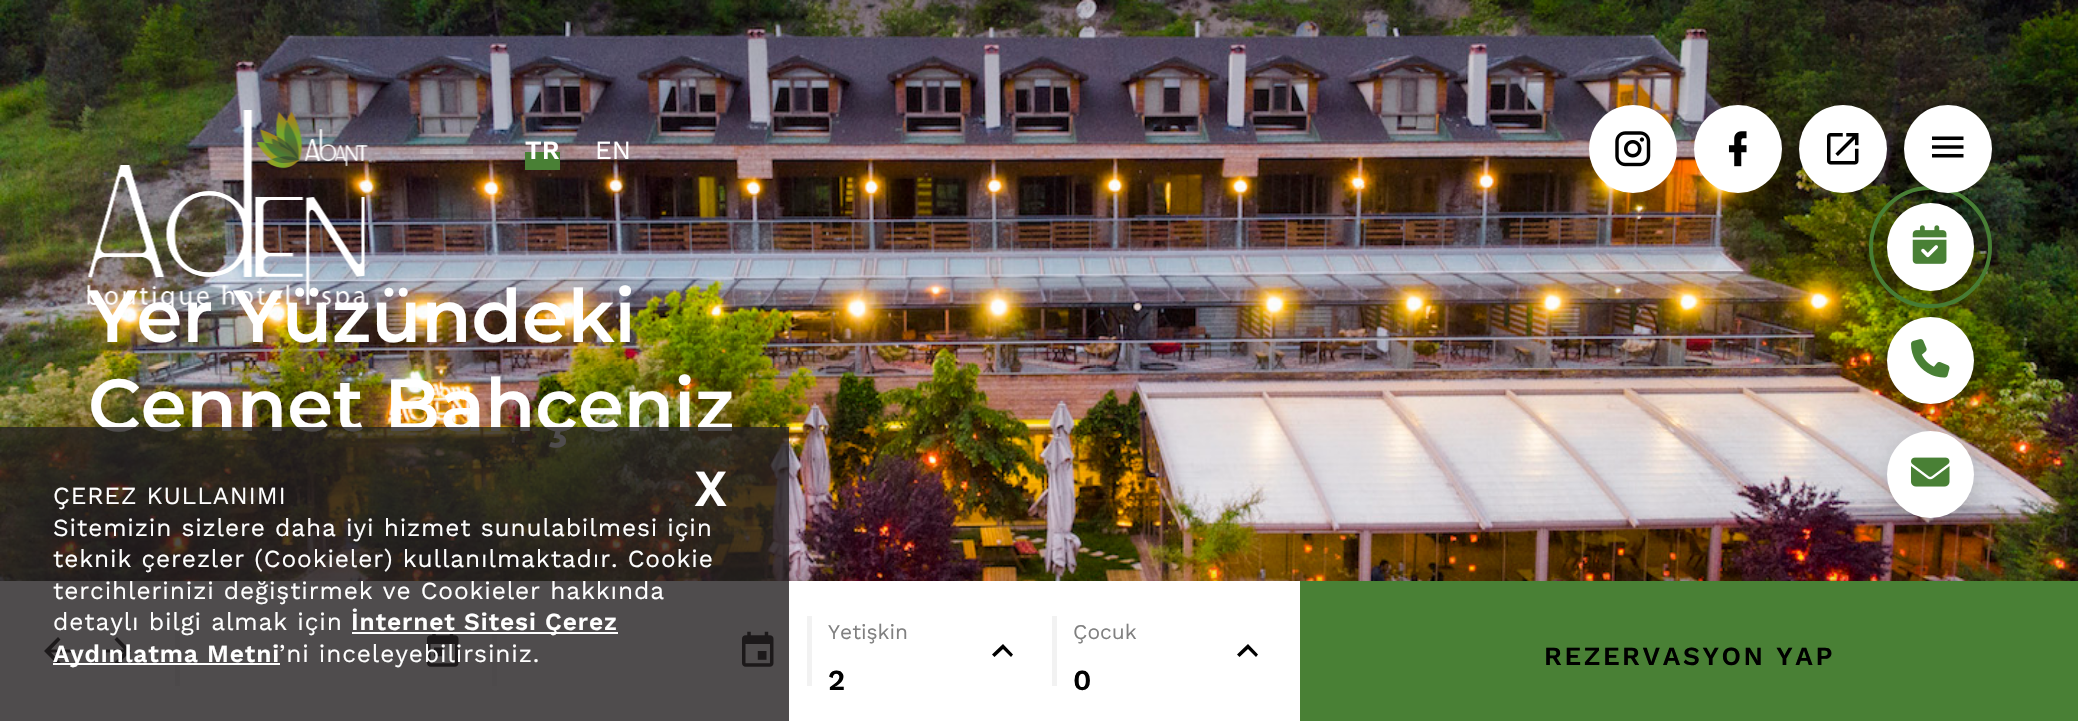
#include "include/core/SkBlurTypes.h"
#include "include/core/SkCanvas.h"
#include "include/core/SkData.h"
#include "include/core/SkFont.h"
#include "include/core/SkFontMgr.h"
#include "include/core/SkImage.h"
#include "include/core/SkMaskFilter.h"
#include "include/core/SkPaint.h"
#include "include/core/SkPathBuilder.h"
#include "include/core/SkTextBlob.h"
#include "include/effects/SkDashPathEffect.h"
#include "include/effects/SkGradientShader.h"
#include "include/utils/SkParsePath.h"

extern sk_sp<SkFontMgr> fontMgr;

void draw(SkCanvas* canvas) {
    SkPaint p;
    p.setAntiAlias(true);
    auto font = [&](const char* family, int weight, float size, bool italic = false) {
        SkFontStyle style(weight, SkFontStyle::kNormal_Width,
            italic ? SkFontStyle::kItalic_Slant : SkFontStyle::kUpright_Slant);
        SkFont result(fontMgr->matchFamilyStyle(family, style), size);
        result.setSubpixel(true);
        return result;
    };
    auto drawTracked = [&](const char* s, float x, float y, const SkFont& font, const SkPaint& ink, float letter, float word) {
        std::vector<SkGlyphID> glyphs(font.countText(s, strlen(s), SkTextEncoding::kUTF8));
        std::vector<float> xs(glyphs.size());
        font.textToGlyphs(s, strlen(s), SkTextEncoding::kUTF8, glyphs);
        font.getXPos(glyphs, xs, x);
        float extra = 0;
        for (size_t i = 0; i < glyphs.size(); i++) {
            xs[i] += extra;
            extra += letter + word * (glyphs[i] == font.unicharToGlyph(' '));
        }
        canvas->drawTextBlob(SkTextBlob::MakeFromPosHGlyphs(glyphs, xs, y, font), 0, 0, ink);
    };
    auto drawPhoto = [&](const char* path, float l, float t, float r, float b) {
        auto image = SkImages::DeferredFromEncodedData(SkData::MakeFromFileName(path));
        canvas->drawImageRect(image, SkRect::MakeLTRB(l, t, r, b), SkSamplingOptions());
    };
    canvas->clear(0xFFFFFFFF);
    drawPhoto("media/6.png", 0, 0, 2078, 581);
    auto font1 = font("Montserrat", 600, 73.5f);
    p.setColor(0xFFFFFFFF);
    canvas->drawString("Yer Yüzündeki", 88, 342, font1, p);
    drawPhoto("media/1.png", 87, 110, 368, 309);
    p.setColor(0x33FFFFFF);
    canvas->drawRect(SkRect::MakeLTRB(420, 149, 473, 154), p);
    p.setColor(0xFF498035);
    canvas->drawRect(SkRect::MakeLTRB(525, 152, 560, 170), p);
    auto font2 = font("Work Sans", 600, 26.25f);
    p.setColor(0xFFFFFFFF);
    canvas->drawString("TR", 525, 159, font2, p);
    auto font3 = font("Work Sans", 400, 26.25f);
    canvas->drawString("EN", 595, 159, font3, p);
    canvas->drawCircle(1633, 149, 44, p);
    drawPhoto("media/2.png", 1615, 131, 1651, 167);
    canvas->drawCircle(1738, 149, 44, p);
    drawPhoto("media/3.png", 1728, 131, 1747, 167);
    p.setStyle(SkPaint::kStroke_Style);
    p.setStrokeWidth(4);
    p.setColor(0xFF498035);
    canvas->drawRoundRect(SkRect::MakeLTRB(1871, 188, 1990, 306), 59, 59, p);
    p.setStyle(SkPaint::kFill_Style);
    p.setColor(0x26000000);
    p.setMaskFilter(SkMaskFilter::MakeBlur(kNormal_SkBlurStyle, 10.5f));
    canvas->drawRoundRect(SkRect::MakeLTRB(1887, 210, 1974, 298), 43.5f, 43.5f, p);
    p.setMaskFilter(nullptr);
    p.setColor(0xFFFFFFFF);
    canvas->drawCircle(1843, 149, 44, p);
    drawPhoto("media/4.png", 1827, 133, 1859, 165);
    canvas->drawCircle(1948, 149, 44, p);
    drawPhoto("media/5.png", 1932, 136, 1964, 158);
    canvas->drawString("Cennet Bahçeniz", 88, 431, font1, p);
    p.setColor(0xFF000000);
    canvas->drawPath(SkPathBuilder().moveTo(72, 649.5f).lineTo(72, 652.5f).lineTo(51, 652.5f).lineTo(60.5f, 662.5f).lineTo(58, 665).lineTo(44, 651).lineTo(58, 637).lineTo(60.5f, 639.5f).lineTo(51, 649.5f).close().detach(), p);
    canvas->drawPath(SkPathBuilder().moveTo(103, 649.5f).lineTo(103, 652.5f).lineTo(124, 652.5f).lineTo(114.5f, 662.5f).lineTo(117, 665).lineTo(131, 651).lineTo(117, 637).lineTo(114.5f, 639.5f).lineTo(124, 649.5f).close().detach(), p);
    p.setColor(0xFFF2F2F2);
    canvas->drawRect(SkRect::MakeLTRB(175, 616, 180, 686), p);
    p.setColor(0xFFFFFFFF);
    canvas->drawRoundRect(SkRect::MakeLTRB(1887, 203, 1974, 291), 43.5f, 43.5f, p);
    drawPhoto("media/7.png", 1912, 225, 1947, 264);
    p.setColor(0x26000000);
    p.setMaskFilter(SkMaskFilter::MakeBlur(kNormal_SkBlurStyle, 10.5f));
    canvas->drawRoundRect(SkRect::MakeLTRB(1887, 324, 1974, 411), 43.5f, 43.5f, p);
    p.setMaskFilter(nullptr);
    p.setColor(0xFFFFFFFF);
    canvas->drawCircle(1930.5f, 360.5f, 43.5f, p);
    drawPhoto("media/8.png", 1911, 339, 1950, 378);
    p.setColor(0x26000000);
    p.setMaskFilter(SkMaskFilter::MakeBlur(kNormal_SkBlurStyle, 10.5f));
    canvas->drawRoundRect(SkRect::MakeLTRB(1887, 438, 1974, 525), 43.5f, 43.5f, p);
    p.setMaskFilter(nullptr);
    p.setColor(0xFFFFFFFF);
    canvas->drawCircle(1930.5f, 474.5f, 43.5f, p);
    drawPhoto("media/9.png", 1911, 457, 1950, 487);
    p.setColor(0x0D000000);
    p.setMaskFilter(SkMaskFilter::MakeBlur(kNormal_SkBlurStyle, 17.5f));
    canvas->drawRect(SkRect::MakeLTRB(207, 581, 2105, 721), p);
    p.setMaskFilter(nullptr);
    p.setMaskFilter(SkMaskFilter::MakeBlur(kNormal_SkBlurStyle, 17.5f));
    canvas->drawRect(SkRect::MakeLTRB(207, 581, 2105, 721), p);
    p.setMaskFilter(nullptr);
    p.setColor(0xFFFFFFFF);
    canvas->drawRect(SkRect::MakeLTRB(185, 581, 1300, 721), p);
    drawPhoto("media/10.png", 427, 631, 459, 667);
    p.setColor(0xFFF2F2F2);
    canvas->drawRect(SkRect::MakeLTRB(492, 616, 497, 686), p);
    drawPhoto("media/11.png", 742, 631, 774, 667);
    p.setColor(0xCC231F20);
    canvas->drawRect(SkRect::MakeLTRB(0, 427, 789, 721), p);
    auto font4 = font("Work Sans", 600, 52);
    p.setColor(0xFFFFFFFF);
    drawTracked("X", 694, 506, font4, p, 0.88f, 0);
    auto font5 = font("Work Sans", 400, 24.5f);
    {
        const struct { const char* s; float x, y; } items[] = {
            {"ÇEREZ KULLANIMI", 53, 504},
            {"Sitemizin sizlere daha iyi hizmet sunulabilmesi için", 53, 536},
            {"teknik çerezler (Cookieler) kullanılmaktadır. Cookie", 53, 567},
            {"tercihlerinizi değiştirmek ve Cookieler hakkında", 53, 599},
            {"detaylı bilgi almak için", 53, 630},
        };
        for (auto [s, x, y] : items) {
            drawTracked(s, x, y, font5, p, 0.88f, 0);
        }
    }
    canvas->drawRect(SkRect::MakeLTRB(352, 632, 618, 634), p);
    auto font6 = font("Work Sans", 600, 24.5f);
    drawTracked("İnternet Sitesi Çerez", 351, 630, font6, p, 0.88f, 0);
    canvas->drawRect(SkRect::MakeLTRB(53, 663, 280, 665), p);
    drawTracked("Aydınlatma Metni", 53, 662, font6, p, 0.88f, 0);
    drawTracked("’ni inceleyebilirsiniz.", 279, 662, font5, p, 0.88f, 0);
    p.setColor(0xFFF2F2F2);
    canvas->drawRect(SkRect::MakeLTRB(807, 616, 812, 686), p);
    auto font7 = font("Work Sans", 400, 21);
    p.setColor(0xFF808080);
    canvas->drawString("Yetişkin", 828, 639, font7, p);
    p.setColor(0xFFF2F2F2);
    canvas->drawRect(SkRect::MakeLTRB(1052, 616, 1057, 686), p);
    p.setColor(0xFF000000);
    canvas->drawPath(SkPathBuilder().moveTo(994.5f, 657).lineTo(1003, 649).lineTo(1011, 657).lineTo(1013, 654.5f).lineTo(1003, 644).lineTo(992, 654.5f).close().detach(), p);
    auto font8 = font("Work Sans", 600, 29);
    canvas->drawString("2", 828, 690, font8, p);
    p.setColor(0xFF808080);
    canvas->drawString("Çocuk", 1073, 639, font7, p);
    p.setColor(0xFF000000);
    canvas->drawPath(SkPathBuilder().moveTo(1239.5f, 657).lineTo(1248, 649).lineTo(1256, 657).lineTo(1258, 654.5f).lineTo(1248, 644).lineTo(1237, 654.5f).close().detach(), p);
    canvas->drawString("0", 1073, 690, font8, p);
    p.setColor(0xFF498035);
    canvas->drawRect(SkRect::MakeLTRB(1300, 581, 2078, 721), p);
    p.setColor(0xFF000000);
    drawTracked("REZERVASYON YAP", 1544, 665, font2, p, 2.6f, 0);
}
